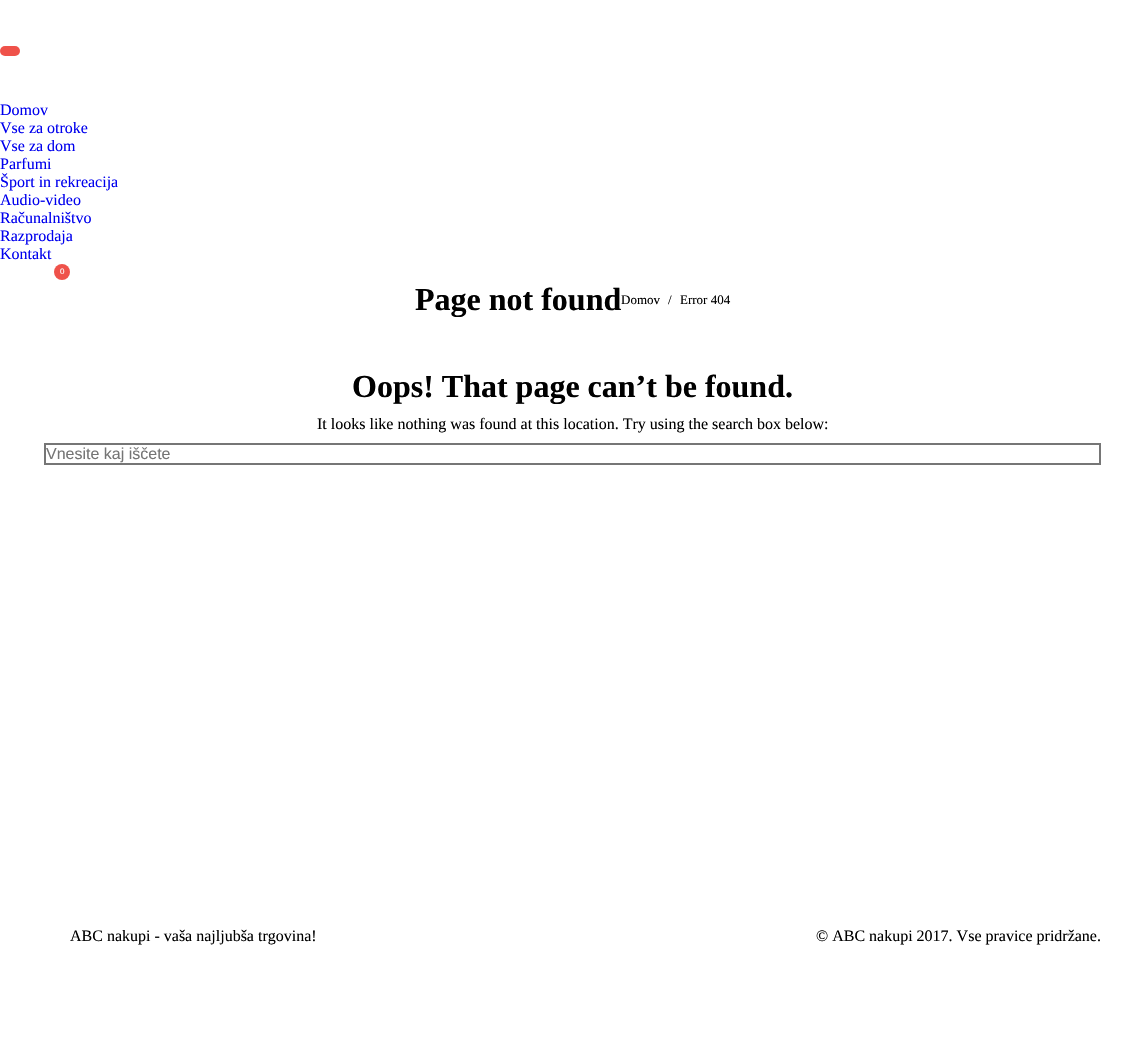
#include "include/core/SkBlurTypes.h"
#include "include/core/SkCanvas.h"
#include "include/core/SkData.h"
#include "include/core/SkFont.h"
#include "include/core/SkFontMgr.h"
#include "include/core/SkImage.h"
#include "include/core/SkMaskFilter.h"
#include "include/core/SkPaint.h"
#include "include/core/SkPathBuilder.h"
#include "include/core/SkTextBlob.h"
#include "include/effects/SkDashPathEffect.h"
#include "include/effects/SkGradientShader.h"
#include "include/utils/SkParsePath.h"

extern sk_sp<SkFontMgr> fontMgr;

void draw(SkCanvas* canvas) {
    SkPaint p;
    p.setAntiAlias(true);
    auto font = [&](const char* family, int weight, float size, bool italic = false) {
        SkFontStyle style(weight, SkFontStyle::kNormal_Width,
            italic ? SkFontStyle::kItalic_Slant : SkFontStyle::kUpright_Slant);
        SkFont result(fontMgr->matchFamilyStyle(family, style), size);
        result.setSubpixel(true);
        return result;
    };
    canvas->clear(0xFFFFFFFF);
    p.setColor(0xFFEF524A);
    canvas->drawRoundRect(SkRect::MakeLTRB(0, 46, 20, 56), 5, 5, p);
    auto font1 = font("Liberation Serif", 400, 16);
    p.setColor(0xFF0000EE);
    {
        const struct { const char* s; float x, y; } items[] = {
            {"Domov", 0, 115},
            {"Vse za otroke", 0, 133},
            {"Vse za dom", 0, 151},
            {"Parfumi", 0, 169},
            {"Šport in rekreacija", 0, 187},
            {"Audio-video", 0, 205},
            {"Računalništvo", 0, 223},
            {"Razprodaja", 0, 241},
            {"Kontakt", 0, 259},
        };
        for (auto [s, x, y] : items) {
            canvas->drawString(s, x, y, font1, p);
        }
    }
    p.setColor(0xFFEF524A);
    canvas->drawCircle(62, 272, 8, p);
    auto font2 = font("Liberation Sans", 400, 8);
    p.setColor(0xFFFFFFFF);
    canvas->drawString("0", 60, 274, font2, p);
    auto font3 = font("Liberation Serif", 700, 32);
    p.setColor(0xFF000000);
    canvas->drawString("Page not found", 415, 310, font3, p);
    auto font4 = font("Liberation Serif", 400, 13);
    {
        const struct { const char* s; float x, y; } items[] = {
            {"Domov", 621, 304},
            {"/", 668, 304},
            {"Error 404", 680, 304},
        };
        for (auto [s, x, y] : items) {
            canvas->drawString(s, x, y, font4, p);
        }
    }
    canvas->drawString("Oops! That page can’t be found.", 352, 397, font3, p);
    canvas->drawString("It looks like nothing was found at this location. Try using the search box below:", 317, 429, font1, p);
    p.setStyle(SkPaint::kStroke_Style);
    p.setStrokeWidth(2);
    p.setColor(0xFF767676);
    canvas->drawRect(SkRect::MakeLTRB(45, 444, 1100, 464), p);
    auto font5 = font("Liberation Sans", 400, 16);
    p.setStyle(SkPaint::kFill_Style);
    p.setColor(0xFF757575);
    canvas->drawString("Vnesite kaj iščete", 46, 459, font5, p);
    p.setColor(0xFF000000);
    canvas->drawString("ABC nakupi - vaša najljubša trgovina!", 70, 941, font1, p);
    canvas->drawString("© ABC nakupi 2017. Vse pravice pridržane.", 816, 941, font1, p);
}
